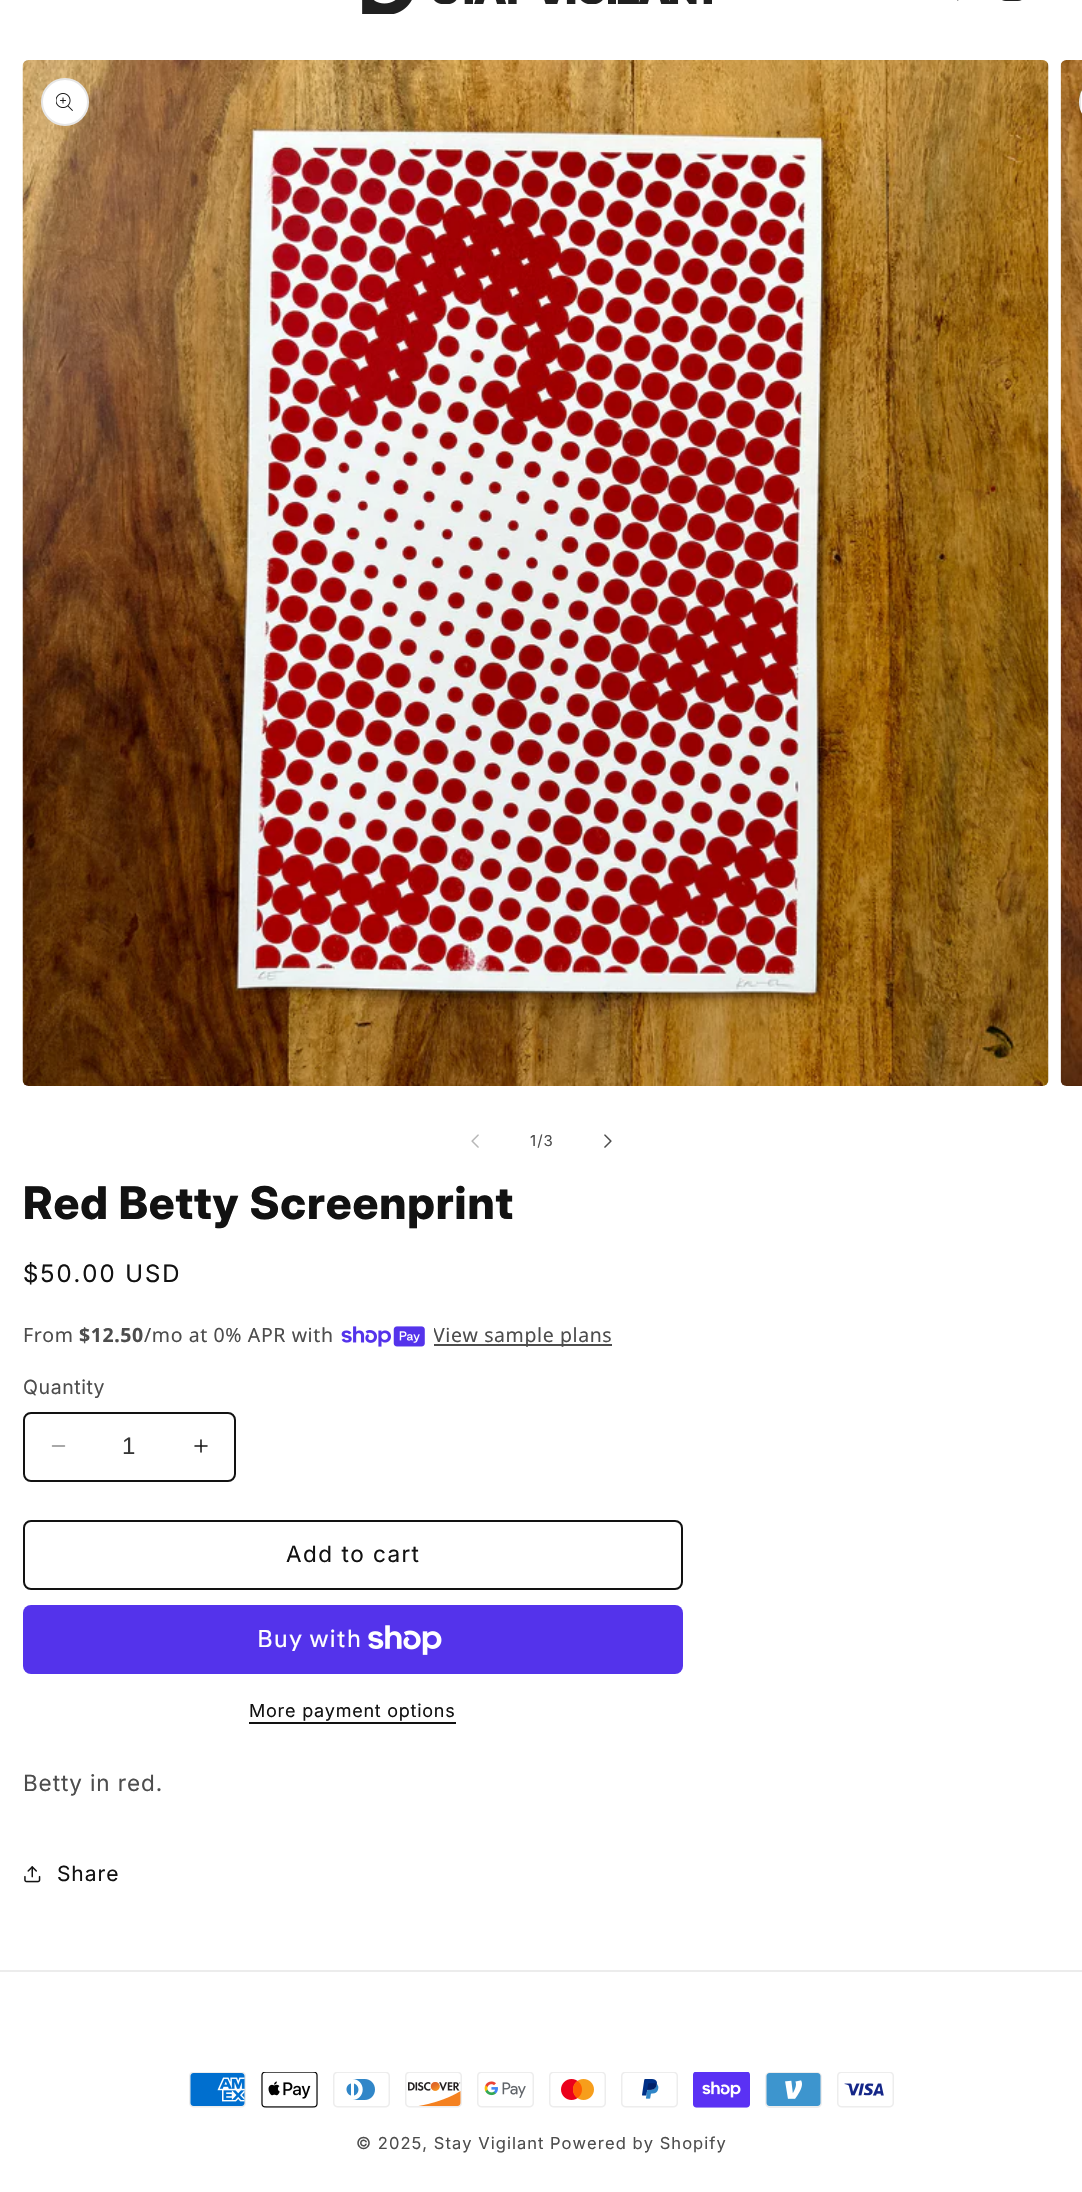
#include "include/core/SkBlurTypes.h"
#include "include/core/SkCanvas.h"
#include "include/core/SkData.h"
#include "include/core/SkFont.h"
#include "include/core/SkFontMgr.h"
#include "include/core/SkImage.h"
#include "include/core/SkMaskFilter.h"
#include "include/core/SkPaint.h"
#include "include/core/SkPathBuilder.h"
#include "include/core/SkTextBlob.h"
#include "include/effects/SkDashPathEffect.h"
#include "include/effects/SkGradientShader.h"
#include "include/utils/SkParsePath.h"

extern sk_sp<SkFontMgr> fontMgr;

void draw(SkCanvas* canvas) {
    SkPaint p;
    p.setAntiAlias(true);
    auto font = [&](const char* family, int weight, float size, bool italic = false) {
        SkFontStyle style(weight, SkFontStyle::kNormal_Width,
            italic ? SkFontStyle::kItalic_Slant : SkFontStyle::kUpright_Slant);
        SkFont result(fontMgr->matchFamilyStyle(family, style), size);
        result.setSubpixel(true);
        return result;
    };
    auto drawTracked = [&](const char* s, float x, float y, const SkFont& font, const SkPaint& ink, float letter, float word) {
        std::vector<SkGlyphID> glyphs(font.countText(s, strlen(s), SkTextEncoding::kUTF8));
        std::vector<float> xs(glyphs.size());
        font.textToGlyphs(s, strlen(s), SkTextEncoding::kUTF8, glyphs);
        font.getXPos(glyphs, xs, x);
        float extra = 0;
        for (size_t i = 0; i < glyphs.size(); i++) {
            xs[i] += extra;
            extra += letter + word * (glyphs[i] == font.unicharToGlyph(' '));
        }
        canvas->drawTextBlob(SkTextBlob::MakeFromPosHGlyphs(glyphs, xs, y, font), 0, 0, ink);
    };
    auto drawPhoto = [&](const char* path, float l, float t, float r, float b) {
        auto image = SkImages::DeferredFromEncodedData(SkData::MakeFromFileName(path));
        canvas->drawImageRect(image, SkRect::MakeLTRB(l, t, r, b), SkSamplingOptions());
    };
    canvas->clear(0xFFFFFFFF);
    drawPhoto("media/1.png", 362, 0, 712, 14);
    drawPhoto("media/2.png", 957, 0, 959, 1);
    drawPhoto("media/3.png", 1002, 0, 1022, 1);
    drawPhoto("media/4.png", 22, 60, 1049, 1086);
    p.setColor(0xFFFFFFFF);
    canvas->drawCircle(65, 102, 24, p);
    p.setStyle(SkPaint::kStroke_Style);
    p.setStrokeWidth(2);
    p.setColor(0x1A121212);
    canvas->drawCircle(65, 102, 23, p);
    drawPhoto("media/5.png", 56, 93, 73, 111);
    drawPhoto("media/6.png", 1060, 60, 1082, 1086);
    p.setStyle(SkPaint::kFill_Style);
    p.setColor(0xFFFFFFFF);
    canvas->drawPath(SkPathBuilder().moveTo(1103, 78).lineTo(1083, 78).lineTo(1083, 126).lineTo(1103, 126).cubicTo(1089.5f, 126, 1079, 115.5f, 1079, 102).cubicTo(1079, 88.5f, 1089.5f, 78, 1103, 78).close().detach(), p);
    p.setStyle(SkPaint::kStroke_Style);
    p.setColor(0x1A121212);
    canvas->drawRoundRect(SkRect::MakeLTRB(1080, 79, 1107, 125), 23, 23, p);
    drawPhoto("media/7.png", 471, 1134, 479, 1148);
    auto font1 = font("Inter", 400, 15);
    p.setStyle(SkPaint::kFill_Style);
    p.setColor(0xFF4D4D4D);
    drawTracked("1/3", 530, 1146, font1, p, 1.05f, 0);
    drawPhoto("media/8.png", 604, 1134, 612, 1148);
    auto font2 = font("Inter", 800, 45);
    p.setColor(0xFF121212);
    drawTracked("Red Betty Screenprint", 23, 1219, font2, p, 0.9f, 0);
    auto font3 = font("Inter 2", 400, 24);
    drawTracked("$50.00 USD", 23, 1282, font3, p, 2, 0);
    auto font4 = font("Noto Sans", 400, 19.5f);
    p.setColor(0xFF4D4D4D);
    drawTracked("From", 23, 1342, font4, p, 0.6f, 0);
    auto font5 = font("Noto Sans", 700, 19.5f);
    drawTracked("$12.50", 79, 1342, font5, p, 0.6f, 0);
    drawTracked("/mo at 0% APR with", 144, 1342, font4, p, 0.6f, 0);
    drawPhoto("media/9.png", 341, 1326, 425, 1347);
    canvas->drawRect(SkRect::MakeLTRB(434, 1344, 612, 1346), p);
    canvas->save();
    canvas->clipRect(SkRect::MakeLTRB(434, 1322, 612, 1350));
    drawTracked("View sample plans", 433, 1342, font4, p, 0.6f, 0);
    canvas->restore();
    auto font6 = font("Inter", 400, 19.5f);
    drawTracked("Quantity", 23, 1394, font6, p, 0.6f, 0);
    drawPhoto("media/10.png", 51, 1445, 66, 1447);
    drawPhoto("media/11.png", 194, 1439, 208, 1453);
    p.setStyle(SkPaint::kStroke_Style);
    p.setColor(0xFF121212);
    canvas->drawRoundRect(SkRect::MakeLTRB(24, 1413, 235, 1481), 7, 7, p);
    auto font7 = font("Liberation Sans", 400, 24);
    p.setStyle(SkPaint::kFill_Style);
    p.setColor(0xFF363636);
    canvas->drawString("1", 122, 1454, font7, p);
    p.setStyle(SkPaint::kStroke_Style);
    p.setColor(0xFF121212);
    canvas->drawRoundRect(SkRect::MakeLTRB(24, 1521, 682, 1589), 7, 7, p);
    auto font8 = font("Inter", 400, 22.5f);
    p.setStyle(SkPaint::kFill_Style);
    drawTracked("Add to cart", 286, 1562, font8, p, 1.5f, 0);
    p.setColor(0xFF5433EB);
    canvas->drawRoundRect(SkRect::MakeLTRB(23, 1605, 683, 1674), 8, 8, p);
    auto font9 = font("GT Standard", 400, 24);
    p.setColor(0xFFFFFFFF);
    drawTracked("Buy with", 257, 1647, font9, p, 0.9f, 0);
    drawPhoto("media/12.png", 368, 1625, 442, 1655);
    auto font10 = font("Inter", 400, 18);
    p.setColor(0xFF121212);
    drawTracked("More payment options", 249, 1717, font10, p, 0.75f, 0);
    canvas->drawRect(SkRect::MakeLTRB(249, 1722, 456, 1724), p);
    p.setColor(0xFF4D4D4D);
    drawTracked("Betty in red.", 23, 1791, font8, p, 0.9f, 0);
    drawPhoto("media/13.png", 24, 1866, 41, 1883);
    auto font11 = font("Inter", 400, 21);
    p.setColor(0xFF121212);
    drawTracked("Share", 57, 1881, font11, p, 0.9f, 0);
    p.setColor(0xFFECECEC);
    canvas->drawRect(SkRect::MakeLTRB(0, 1970, 1082, 1972), p);
    drawPhoto("media/14.png", 189, 2072, 246, 2108);
    drawPhoto("media/15.png", 261, 2072, 318, 2108);
    drawPhoto("media/16.png", 333, 2072, 390, 2108);
    drawPhoto("media/17.png", 405, 2072, 462, 2108);
    drawPhoto("media/18.png", 477, 2072, 534, 2108);
    drawPhoto("media/19.png", 549, 2072, 606, 2108);
    drawPhoto("media/20.png", 621, 2072, 678, 2108);
    drawPhoto("media/21.png", 693, 2072, 750, 2108);
    drawPhoto("media/22.png", 765, 2072, 822, 2108);
    drawPhoto("media/23.png", 837, 2072, 894, 2108);
    auto font12 = font("Inter", 400, 16.5f);
    p.setColor(0xFF4D4D4D);
    drawTracked("© 2025, Stay Vigilant", 356, 2149, font12, p, 1.05f, 0);
    drawTracked("Powered by Shopify", 550, 2149, font12, p, 1.05f, 0);
}
